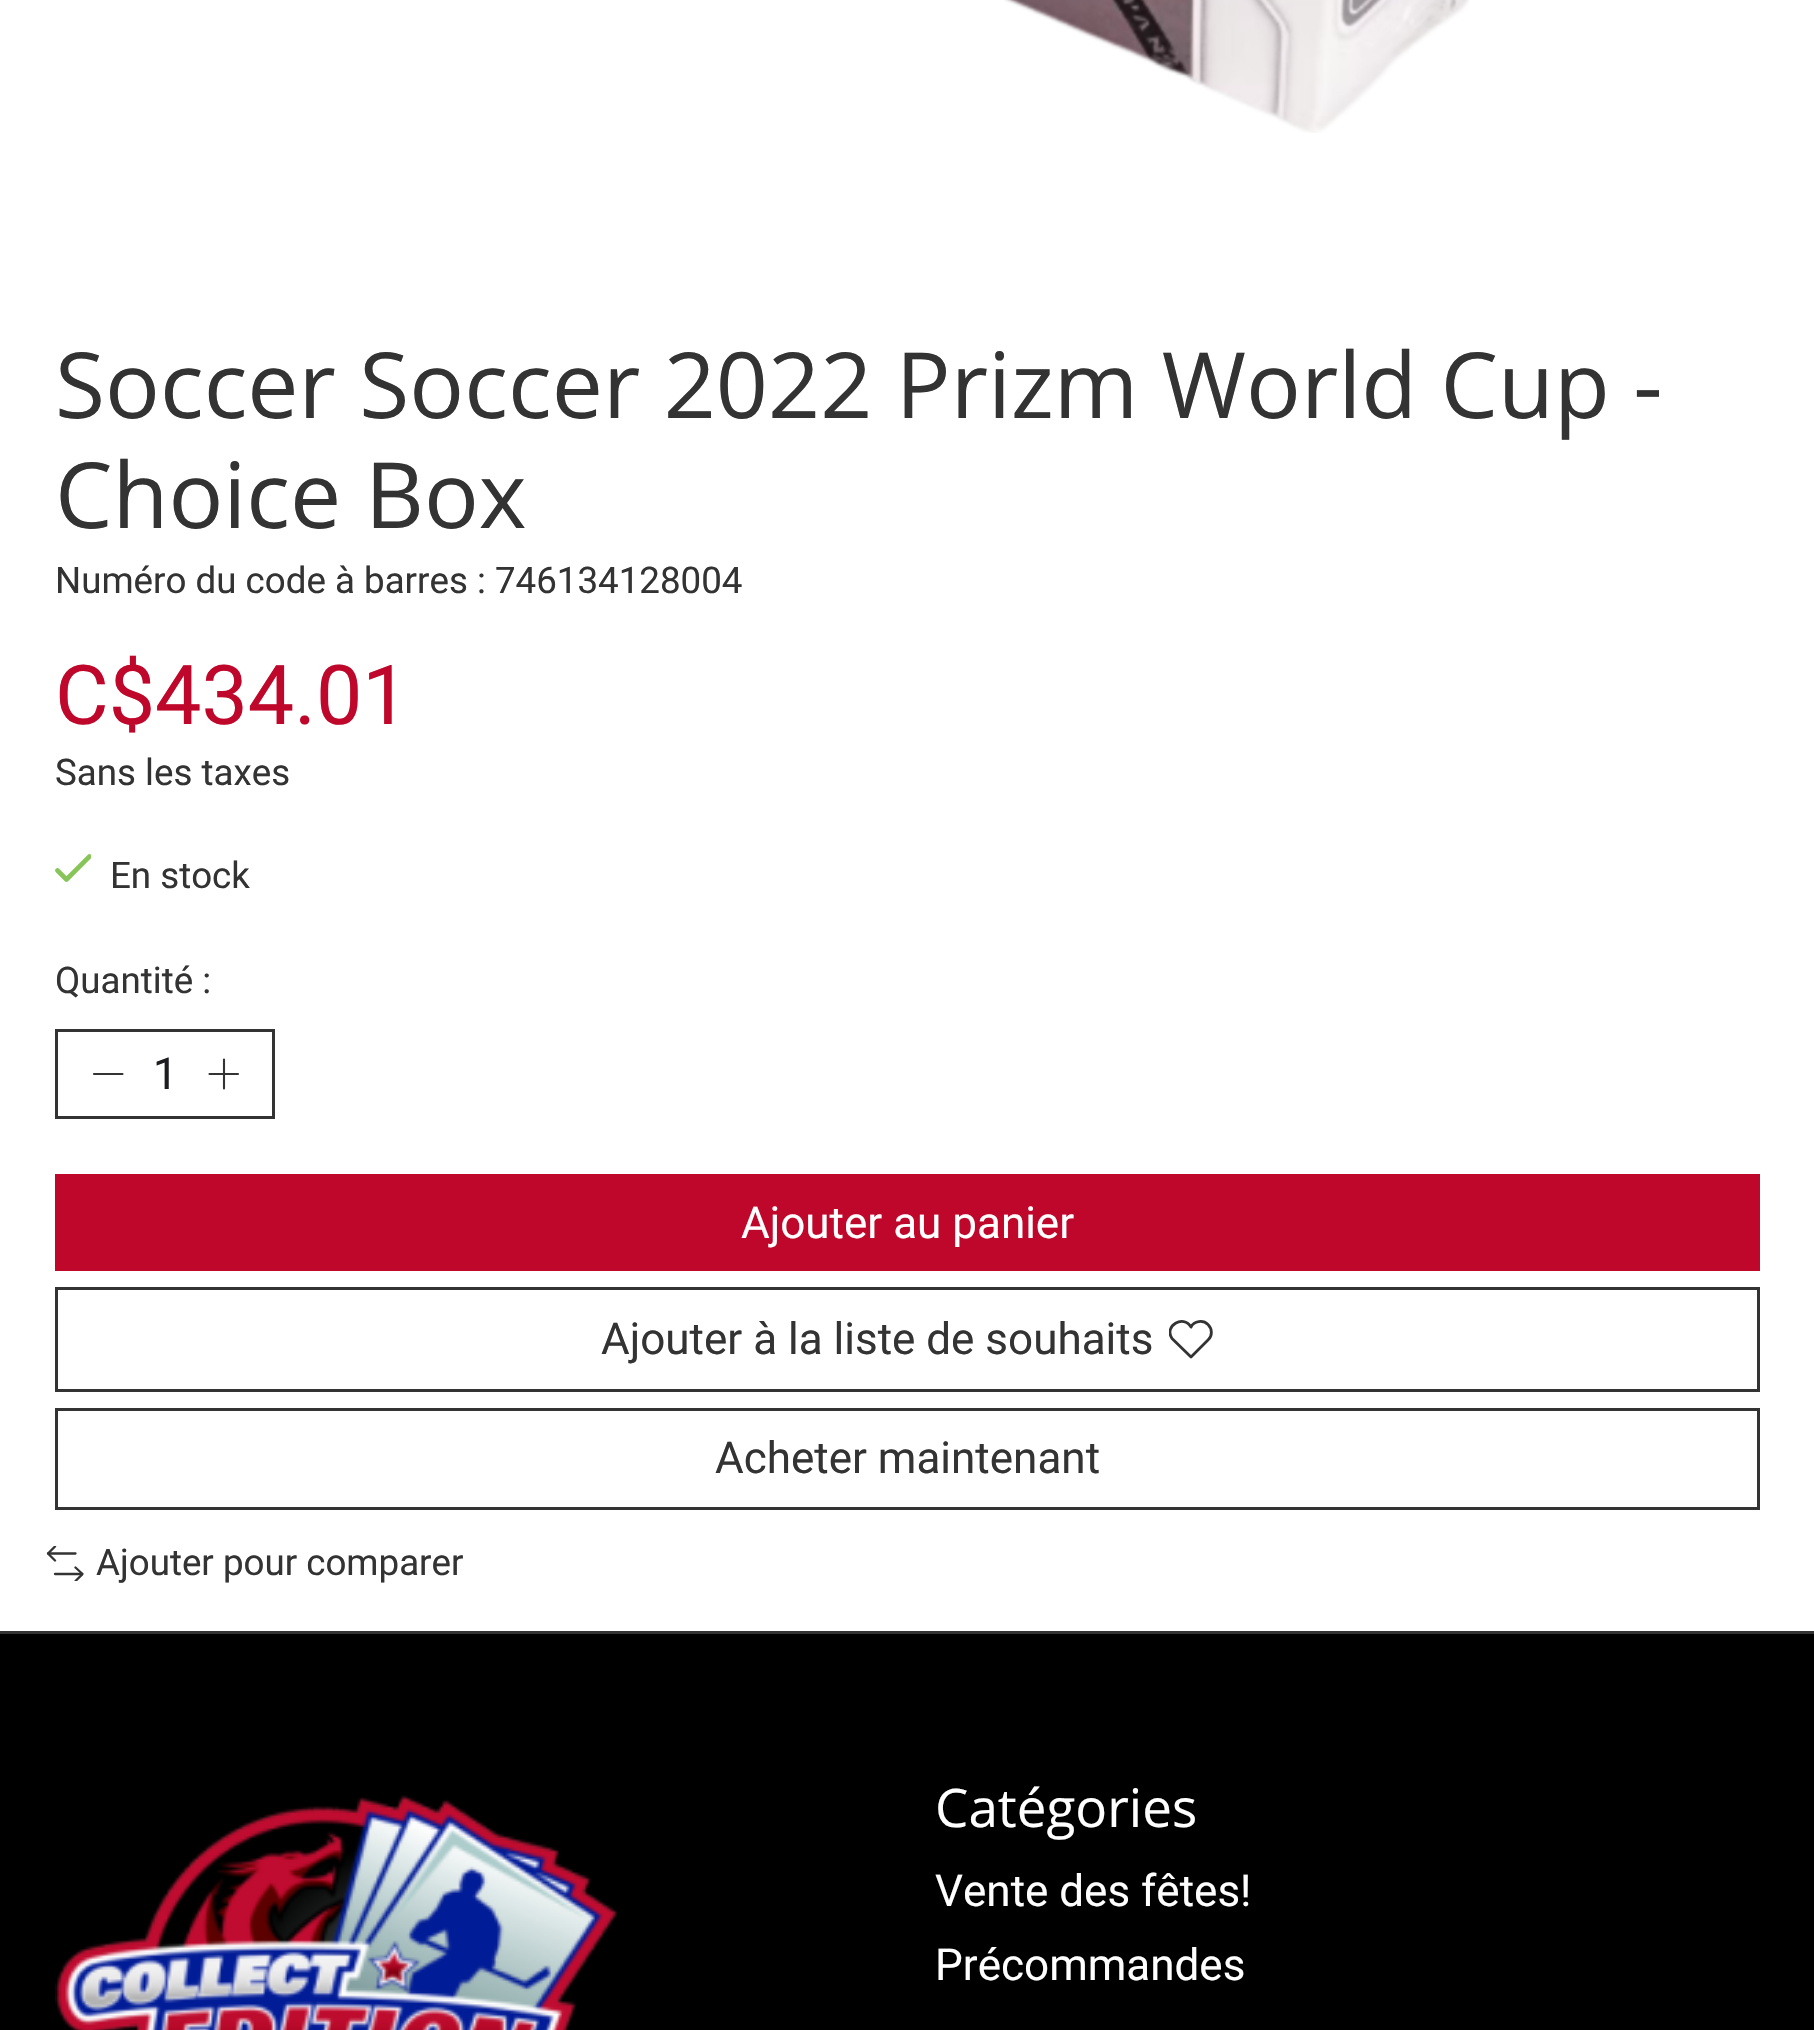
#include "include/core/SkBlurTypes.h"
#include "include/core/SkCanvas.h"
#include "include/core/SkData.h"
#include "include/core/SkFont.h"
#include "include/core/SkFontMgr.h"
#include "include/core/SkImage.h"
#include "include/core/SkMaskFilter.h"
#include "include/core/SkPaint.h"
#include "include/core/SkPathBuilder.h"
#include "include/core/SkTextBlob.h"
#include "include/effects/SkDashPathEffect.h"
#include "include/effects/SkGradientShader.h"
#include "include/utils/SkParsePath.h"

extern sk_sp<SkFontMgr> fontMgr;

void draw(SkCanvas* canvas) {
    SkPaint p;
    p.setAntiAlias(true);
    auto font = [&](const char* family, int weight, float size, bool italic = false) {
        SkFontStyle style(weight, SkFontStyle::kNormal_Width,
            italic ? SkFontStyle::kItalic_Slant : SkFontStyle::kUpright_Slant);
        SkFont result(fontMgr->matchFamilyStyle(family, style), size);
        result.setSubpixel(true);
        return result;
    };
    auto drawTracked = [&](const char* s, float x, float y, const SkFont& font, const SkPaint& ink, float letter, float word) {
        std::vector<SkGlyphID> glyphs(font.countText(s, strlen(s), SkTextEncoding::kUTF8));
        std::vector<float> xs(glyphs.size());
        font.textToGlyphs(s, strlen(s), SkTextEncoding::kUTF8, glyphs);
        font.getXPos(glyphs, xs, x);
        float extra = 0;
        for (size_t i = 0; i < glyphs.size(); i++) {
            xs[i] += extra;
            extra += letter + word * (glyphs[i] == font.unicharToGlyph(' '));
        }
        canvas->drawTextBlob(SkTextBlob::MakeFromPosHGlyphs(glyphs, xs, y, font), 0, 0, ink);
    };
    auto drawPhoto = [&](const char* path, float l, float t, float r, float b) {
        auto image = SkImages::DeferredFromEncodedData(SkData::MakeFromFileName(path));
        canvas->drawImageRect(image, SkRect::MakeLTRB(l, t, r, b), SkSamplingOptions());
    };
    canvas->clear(0xFFFFFFFF);
    drawPhoto("media/1.png", 1004, 0, 1469, 133);
    auto font1 = font("Open Sans", 400, 91.25f);
    p.setColor(0xFF333333);
    drawTracked("Soccer Soccer 2022 Prizm World Cup -", 55, 418, font1, p, 0, -0.25f);
    canvas->drawString("Choice Box", 55, 528, font1, p);
    auto font2 = font("Roboto", 400, 36.7f);
    canvas->drawString("Numéro du code à barres : 746134128004", 55, 593, font2, p);
    auto font3 = font("Roboto", 400, 82.5f);
    p.setColor(0xFFBE072A);
    canvas->drawString("C$434.01", 55, 724, font3, p);
    p.setColor(0xFF333333);
    canvas->drawString("Sans les taxes", 55, 785, font2, p);
    canvas->save();
    canvas->clipRect(SkRect::MakeLTRB(55, 850, 91, 888));
    p.setStyle(SkPaint::kStroke_Style);
    p.setStrokeWidth(4.6f);
    p.setStrokeCap(SkPaint::kRound_Cap);
    p.setStrokeJoin(SkPaint::kRound_Join);
    p.setColor(0xFF88C559);
    canvas->drawPath(SkPathBuilder().moveTo(57.5f, 870.5f).lineTo(66.5f, 879.5f).lineTo(89.5f, 856.5f).detach(), p);
    canvas->restore();
    p.setStyle(SkPaint::kFill_Style);
    p.setColor(0xFF333333);
    canvas->drawString("En stock", 110, 888, font2, p);
    canvas->drawString("Quantité :", 55, 993, font2, p);
    p.setStyle(SkPaint::kStroke_Style);
    p.setStrokeWidth(3);
    p.setStrokeCap(SkPaint::kButt_Cap);
    p.setStrokeJoin(SkPaint::kMiter_Join);
    canvas->drawRect(SkRect::MakeLTRB(56.5f, 1030.5f, 273.5f, 1117.5f), p);
    p.setStrokeWidth(2.1f);
    p.setStrokeCap(SkPaint::kRound_Cap);
    p.setStrokeJoin(SkPaint::kRound_Join);
    canvas->drawPath(SkPathBuilder().moveTo(94, 1074).lineTo(122.5f, 1074).detach(), p);
    auto font4 = font("Roboto", 400, 44);
    p.setStyle(SkPaint::kFill_Style);
    p.setColor(0xFF1C1C21);
    canvas->drawString("1", 153, 1089, font4, p);
    p.setStyle(SkPaint::kStroke_Style);
    p.setColor(0xFF333333);
    canvas->drawPath(SkPathBuilder().moveTo(224, 1059.5f).lineTo(224, 1088.5f).moveTo(209.5f, 1074).lineTo(238, 1074).detach(), p);
    p.setStyle(SkPaint::kFill_Style);
    p.setColor(0xFFBE072A);
    canvas->drawRect(SkRect::MakeLTRB(55, 1174, 1760, 1271), p);
    p.setColor(0xFFFFFFFF);
    canvas->drawString("Ajouter au panier", 741, 1238, font4, p);
    p.setStyle(SkPaint::kStroke_Style);
    p.setStrokeWidth(3);
    p.setStrokeCap(SkPaint::kButt_Cap);
    p.setStrokeJoin(SkPaint::kMiter_Join);
    p.setColor(0xFF333333);
    canvas->drawRect(SkRect::MakeLTRB(56.5f, 1288.5f, 1758.5f, 1390.5f), p);
    p.setStyle(SkPaint::kFill_Style);
    canvas->drawString("Ajouter à la liste de souhaits", 601, 1354, font4, p);
    canvas->save();
    canvas->clipRect(SkRect::MakeLTRB(1169, 1317, 1213, 1361));
    p.setStyle(SkPaint::kStroke_Style);
    p.setStrokeWidth(2.8f);
    p.setStrokeCap(SkPaint::kRound_Cap);
    p.setStrokeJoin(SkPaint::kRound_Join);
    canvas->drawPath(SkPathBuilder().moveTo(1208, 1324.5f).cubicTo(1203, 1319.5f, 1194, 1321, 1191, 1327).cubicTo(1183.5f, 1314, 1163.5f, 1326, 1172, 1338.5f).lineTo(1191, 1357).lineTo(1208, 1340).cubicTo(1212.5f, 1336, 1212.5f, 1329, 1208, 1324.5f).close().detach(), p);
    canvas->restore();
    p.setStrokeWidth(3);
    p.setStrokeCap(SkPaint::kButt_Cap);
    p.setStrokeJoin(SkPaint::kMiter_Join);
    canvas->drawRect(SkRect::MakeLTRB(56.5f, 1409.5f, 1758.5f, 1508.5f), p);
    p.setStyle(SkPaint::kFill_Style);
    canvas->drawString("Acheter maintenant", 715, 1473, font4, p);
    canvas->save();
    canvas->clipRect(SkRect::MakeLTRB(47, 1546, 83, 1581));
    p.setStyle(SkPaint::kStroke_Style);
    p.setStrokeWidth(2.3f);
    p.setStrokeCap(SkPaint::kRound_Cap);
    p.setStrokeJoin(SkPaint::kRound_Join);
    canvas->drawPath(SkPathBuilder().moveTo(55, 1546.5f).lineTo(48, 1553.5f).lineTo(55, 1560.5f).detach(), p);
    canvas->restore();
    canvas->drawPath(SkPathBuilder().moveTo(75.5f, 1553.5f).lineTo(48, 1553.5f).detach(), p);
    canvas->save();
    canvas->clipRect(SkRect::MakeLTRB(47, 1546, 83, 1581));
    canvas->drawPath(SkPathBuilder().moveTo(75.5f, 1567.5f).lineTo(82.5f, 1574).lineTo(75.5f, 1581).detach(), p);
    canvas->restore();
    canvas->drawPath(SkPathBuilder().moveTo(55, 1574).lineTo(82.5f, 1574).detach(), p);
    p.setStyle(SkPaint::kFill_Style);
    canvas->drawString("Ajouter pour comparer", 96, 1575, font2, p);
    p.setColor(0xFF000000);
    canvas->drawRect(SkRect::MakeLTRB(0, 1634, 1814, 2030), p);
    p.setColor(0xFF333333);
    canvas->drawRect(SkRect::MakeLTRB(0, 1631, 1814, 1634), p);
    drawPhoto("media/2.png", 55, 1795, 617, 2030);
    auto font5 = font("Open Sans", 400, 53);
    p.setColor(0xFFFFFFFF);
    canvas->drawString("Catégories", 935, 1827, font5, p);
    canvas->drawString("Vente des fêtes!", 935, 1906, font4, p);
    canvas->drawString("Précommandes", 935, 1980, font4, p);
}
